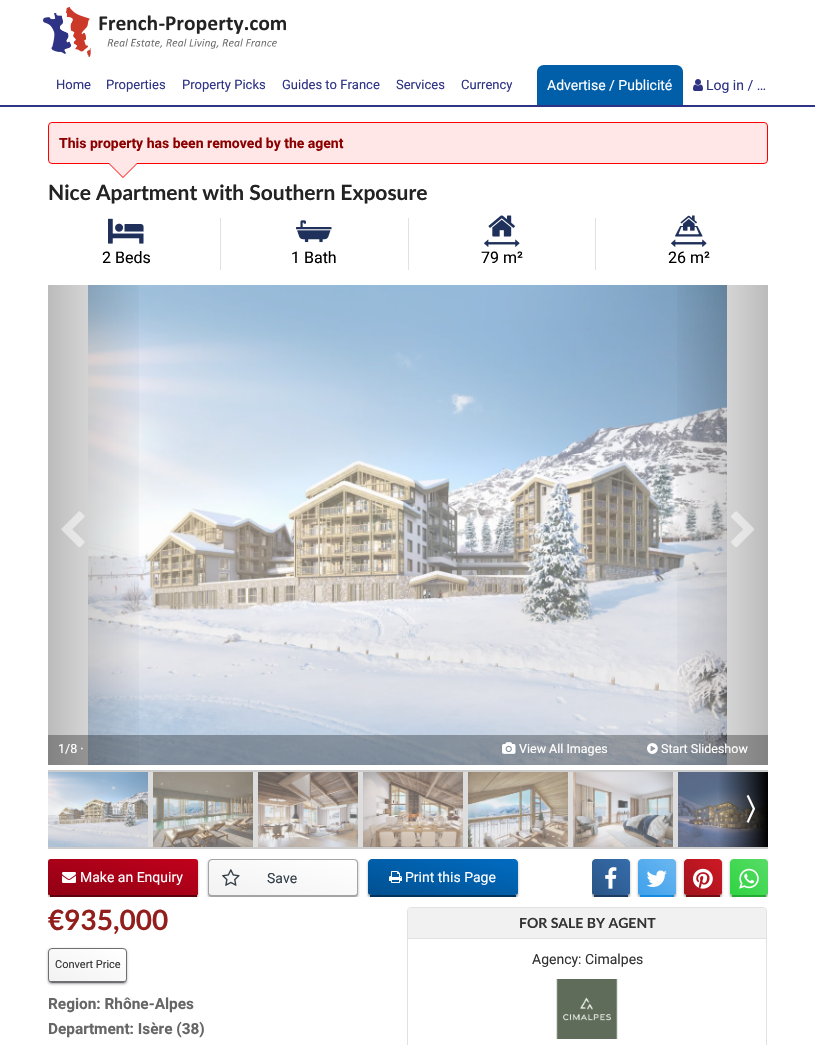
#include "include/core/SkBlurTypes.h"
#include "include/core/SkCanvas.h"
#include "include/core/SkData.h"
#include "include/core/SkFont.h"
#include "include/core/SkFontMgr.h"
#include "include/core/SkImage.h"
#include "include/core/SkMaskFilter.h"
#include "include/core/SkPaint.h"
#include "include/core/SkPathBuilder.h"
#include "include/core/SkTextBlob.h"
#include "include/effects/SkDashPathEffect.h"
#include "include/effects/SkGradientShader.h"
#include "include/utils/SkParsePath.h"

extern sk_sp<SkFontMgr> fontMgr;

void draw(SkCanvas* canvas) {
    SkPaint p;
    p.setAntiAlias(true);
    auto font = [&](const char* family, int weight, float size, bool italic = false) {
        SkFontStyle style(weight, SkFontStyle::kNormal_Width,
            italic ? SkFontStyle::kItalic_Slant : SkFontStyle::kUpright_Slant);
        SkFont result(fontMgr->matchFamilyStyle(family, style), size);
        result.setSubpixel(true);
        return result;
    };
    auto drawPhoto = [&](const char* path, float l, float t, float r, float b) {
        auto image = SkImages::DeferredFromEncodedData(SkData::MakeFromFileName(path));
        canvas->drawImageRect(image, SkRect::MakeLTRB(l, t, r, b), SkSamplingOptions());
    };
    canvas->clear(0xFFFFFFFF);
    p.setColor(0xFF2E3385);
    canvas->drawRect(SkRect::MakeLTRB(0, 105, 815, 107), p);
    drawPhoto("media/1.png", 43, 7, 286, 57);
    auto font1 = font("Roboto", 400, 13);
    {
        const struct { const char* s; float x, y; } items[] = {
            {"Home", 56, 89},
            {"Properties", 106, 89},
            {"Property Picks", 182, 89},
            {"Guides to France", 282, 89},
            {"Services", 396, 89},
            {"Currency", 461, 89},
        };
        for (auto [s, x, y] : items) {
            canvas->drawString(s, x, y, font1, p);
        }
    }
    p.setColor(0xFF015EA9);
    canvas->drawPath(SkPathBuilder().moveTo(544, 65).lineTo(676, 65).cubicTo(680, 65, 683, 68, 683, 72).lineTo(683, 105).lineTo(537, 105).lineTo(537, 72).cubicTo(537, 68, 540, 65, 544, 65).close().detach(), p);
    auto font2 = font("Roboto", 400, 14);
    p.setColor(0xFFFFFFFF);
    canvas->drawString("Advertise / Publicité", 547, 90, font2, p);
    drawPhoto("media/2.png", 693, 79, 703, 91);
    p.setColor(0xFF2E3385);
    canvas->drawString("Log in / …", 706, 90, font2, p);
    p.setColor(0xFFFFE7E7);
    canvas->drawRoundRect(SkRect::MakeLTRB(48.5f, 122.5f, 767.5f, 163.5f), 3.5f, 3.5f, p);
    p.setStyle(SkPaint::kStroke_Style);
    p.setStrokeWidth(1);
    p.setColor(0xFFFF0000);
    canvas->drawRoundRect(SkRect::MakeLTRB(48.5f, 122.5f, 767.5f, 163.5f), 3.5f, 3.5f, p);
    auto font3 = font("Roboto", 700, 14);
    p.setStyle(SkPaint::kFill_Style);
    p.setColor(0xFF8B0000);
    canvas->drawString("This property has been removed by the agent", 59, 148, font3, p);
    p.setColor(0xFFFF0002);
    canvas->drawPath(SkPathBuilder().moveTo(109, 164).lineTo(137, 164).lineTo(123, 178).close().detach(), p);
    p.setColor(0xFFFFE7E7);
    canvas->drawPath(SkPathBuilder().moveTo(109, 163).lineTo(137, 163).lineTo(123, 177).close().detach(), p);
    auto font4 = font("Lato", 700, 21);
    p.setColor(0xFF232323);
    canvas->drawString("Nice Apartment with Southern Exposure", 48, 200, font4, p);
    drawPhoto("media/3.png", 108, 218, 144, 244);
    auto font5 = font("Roboto", 400, 16);
    p.setColor(0xFF000000);
    canvas->drawString("2 Beds", 102, 263, font5, p);
    p.setColor(0xFFE1E1E1);
    canvas->drawRect(SkRect::MakeLTRB(220, 218, 221, 270), p);
    drawPhoto("media/4.png", 296, 220, 332, 243);
    p.setColor(0xFF000000);
    canvas->drawString("1 Bath", 291, 263, font5, p);
    p.setColor(0xFFE1E1E1);
    canvas->drawRect(SkRect::MakeLTRB(408, 218, 409, 270), p);
    drawPhoto("media/5.png", 484, 215, 520, 247);
    p.setColor(0xFF000000);
    canvas->drawString("79 m²", 481, 263, font5, p);
    p.setColor(0xFFE1E1E1);
    canvas->drawRect(SkRect::MakeLTRB(595, 218, 596, 270), p);
    drawPhoto("media/6.png", 671, 215, 707, 247);
    p.setColor(0xFF000000);
    canvas->drawString("26 m²", 668, 263, font5, p);
    p.setColor(0xFFFAFAFA);
    canvas->drawRect(SkRect::MakeLTRB(48, 285, 768, 765), p);
    drawPhoto("media/8.png", 88, 285, 727, 765);
    {
        const SkColor colors[] = {0x40000000, 0x00000000};
        const float stops[] = {0, 1};
        const SkPoint ends[] = {{48, 525}, {148, 525}};
        p.setShader(SkGradientShader::MakeLinear(ends, colors, stops, 2, SkTileMode::kClamp));
        p.setAlpha(255);
    }
    canvas->drawRect(SkRect::MakeLTRB(48, 285, 139, 765), p);
    drawPhoto("media/7.png", 61, 511, 85, 548);
    {
        const SkColor colors[] = {0x40000000, 0x00000000};
        const float stops[] = {0, 1};
        const SkPoint ends[] = {{768, 525}, {668, 525}};
        p.setShader(SkGradientShader::MakeLinear(ends, colors, stops, 2, SkTileMode::kClamp));
        p.setAlpha(255);
    }
    canvas->drawRect(SkRect::MakeLTRB(677, 285, 768, 765), p);
    drawPhoto("media/9.png", 731, 511, 754, 548);
    p.setShader(nullptr);
    p.setColor(0x4D000000);
    canvas->drawRect(SkRect::MakeLTRB(48, 735, 483, 765), p);
    auto font6 = font("Roboto", 400, 12.5f);
    p.setColor(0xFFFFFFFF);
    canvas->drawString("1/8 ·", 58, 753, font6, p);
    p.setColor(0x4D000000);
    canvas->drawRect(SkRect::MakeLTRB(483, 735, 628, 765), p);
    drawPhoto("media/10.png", 502, 742, 516, 754);
    p.setColor(0xFFFFFFFF);
    canvas->drawString("View All Images", 519, 753, font6, p);
    p.setColor(0x4D000000);
    canvas->drawRect(SkRect::MakeLTRB(628, 735, 768, 765), p);
    drawPhoto("media/11.png", 647, 743, 658, 754);
    p.setColor(0xFFFFFFFF);
    canvas->drawString("Start Slideshow", 661, 753, font6, p);
    {
        const struct { float l, t, r, b; SkColor color; } items[] = {
            {48, 772, 768, 847, 0xFFDDDDDD},
            {48, 770, 768, 772, 0xFFCCCCCC},
            {48, 847, 768, 849, 0xFFCCCCCC},
        };
        for (auto [l, t, r, b, color] : items) {
            p.setColor(color);
            canvas->drawRect(SkRect::MakeLTRB(l, t, r, b), p);
        }
    }
    drawPhoto("media/12.png", 48, 772, 148, 847);
    drawPhoto("media/13.png", 153, 772, 253, 847);
    drawPhoto("media/14.png", 258, 772, 358, 847);
    drawPhoto("media/15.png", 363, 772, 463, 847);
    drawPhoto("media/16.png", 468, 772, 568, 847);
    drawPhoto("media/17.png", 573, 772, 673, 847);
    drawPhoto("media/18.png", 678, 772, 768, 847);
    {
        const SkColor colors[] = {0xFF000000, 0x00000000};
        const float stops[] = {0, 1};
        const SkPoint ends[] = {{768, 810}, {718, 810}};
        p.setShader(SkGradientShader::MakeLinear(ends, colors, stops, 2, SkTileMode::kClamp));
        p.setAlpha(255);
    }
    canvas->drawRect(SkRect::MakeLTRB(719, 772, 768, 847), p);
    auto font7 = font("WenQuanYi Zen Hei", 700, 30);
    p.setShader(nullptr);
    p.setColor(0xFFFFFFFF);
    canvas->drawString("〉", 743, 820, font7, p);
    canvas->save();
    canvas->clipRect(SkRect::MakeLTRB(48, 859, 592, 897));
    p.setColor(0x3D000000);
    p.setMaskFilter(SkMaskFilter::MakeBlur(kNormal_SkBlurStyle, 1));
    canvas->drawRoundRect(SkRect::MakeLTRB(48, 860, 198, 898), 3, 3, p);
    p.setMaskFilter(nullptr);
    p.setColor(0x1F000000);
    p.setMaskFilter(SkMaskFilter::MakeBlur(kNormal_SkBlurStyle, 1.5f));
    canvas->drawRoundRect(SkRect::MakeLTRB(48, 860, 198, 898), 3, 3, p);
    p.setMaskFilter(nullptr);
    canvas->restore();
    {
        const SkColor colors[] = {0xFFC2011C, 0xFF900114};
        const float stops[] = {0, 1};
        const SkPoint ends[] = {{131, 843}, {115, 911}};
        p.setShader(SkGradientShader::MakeLinear(ends, colors, stops, 2, SkTileMode::kClamp));
        p.setAlpha(255);
    }
    canvas->drawPath(SkPathBuilder().moveTo(51, 859).lineTo(195, 859).cubicTo(197, 859, 198, 860, 198, 862).lineTo(198, 894).cubicTo(198, 895, 197, 895, 195, 895).lineTo(51, 895).cubicTo(49, 895, 48, 895, 48, 894).lineTo(48, 862).cubicTo(48, 860, 49, 859, 51, 859).close().detach(), p);
    p.setShader(nullptr);
    p.setColor(0xFF5D010D);
    canvas->drawRect(SkRect::MakeLTRB(50, 895, 197, 897), p);
    drawPhoto("media/19.png", 62, 872, 76, 883);
    p.setColor(0xFFFFFFFF);
    canvas->drawString("Make an Enquiry", 80, 882, font2, p);
    canvas->save();
    canvas->clipRect(SkRect::MakeLTRB(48, 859, 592, 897));
    p.setColor(0x3D000000);
    p.setMaskFilter(SkMaskFilter::MakeBlur(kNormal_SkBlurStyle, 1));
    canvas->drawRoundRect(SkRect::MakeLTRB(208, 860, 358, 898), 4, 4, p);
    p.setMaskFilter(nullptr);
    p.setColor(0x1F000000);
    p.setMaskFilter(SkMaskFilter::MakeBlur(kNormal_SkBlurStyle, 1.5f));
    canvas->drawRoundRect(SkRect::MakeLTRB(208, 860, 358, 898), 4, 4, p);
    p.setMaskFilter(nullptr);
    canvas->restore();
    {
        const SkColor colors[] = {0xFFFFFFFF, 0xFFF2F2F2};
        const float stops[] = {0, 1};
        const SkPoint ends[] = {{291, 844}, {275, 911}};
        p.setShader(SkGradientShader::MakeLinear(ends, colors, stops, 2, SkTileMode::kClamp));
        p.setAlpha(255);
    }
    canvas->drawPath(SkPathBuilder().moveTo(212, 860).lineTo(354, 860).cubicTo(356, 860, 357, 861, 357, 863).lineTo(357, 893).cubicTo(357, 894, 356, 895, 354, 895).lineTo(212, 895).cubicTo(210, 895, 209, 894, 209, 893).lineTo(209, 863).cubicTo(209, 861, 210, 860, 212, 860).close().detach(), p);
    p.setStyle(SkPaint::kStroke_Style);
    p.setShader(nullptr);
    p.setColor(0xFFA4A4A4);
    canvas->drawRoundRect(SkRect::MakeLTRB(208.5f, 859.5f, 357.5f, 896.5f), 3.5f, 3.5f, p);
    p.setStyle(SkPaint::kFill_Style);
    canvas->drawRect(SkRect::MakeLTRB(210, 895, 356, 896), p);
    drawPhoto("media/20.png", 222, 869, 240, 886);
    p.setColor(0xFF333F48);
    canvas->drawString("Save", 267, 883, font2, p);
    canvas->save();
    canvas->clipRect(SkRect::MakeLTRB(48, 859, 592, 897));
    p.setColor(0x3D000000);
    p.setMaskFilter(SkMaskFilter::MakeBlur(kNormal_SkBlurStyle, 1));
    canvas->drawRoundRect(SkRect::MakeLTRB(368, 860, 518, 898), 4, 4, p);
    p.setMaskFilter(nullptr);
    p.setColor(0x1F000000);
    p.setMaskFilter(SkMaskFilter::MakeBlur(kNormal_SkBlurStyle, 1.5f));
    canvas->drawRoundRect(SkRect::MakeLTRB(368, 860, 518, 898), 4, 4, p);
    p.setMaskFilter(nullptr);
    canvas->restore();
    {
        const SkColor colors[] = {0xFF016CC2, 0xFF015090};
        const float stops[] = {0, 1};
        const SkPoint ends[] = {{451, 843}, {435, 911}};
        p.setShader(SkGradientShader::MakeLinear(ends, colors, stops, 2, SkTileMode::kClamp));
        p.setAlpha(255);
    }
    canvas->drawPath(SkPathBuilder().moveTo(372, 859).lineTo(514, 859).cubicTo(516, 859, 518, 861, 518, 863).lineTo(518, 893).cubicTo(518, 894, 516, 895, 514, 895).lineTo(372, 895).cubicTo(370, 895, 368, 894, 368, 893).lineTo(368, 863).cubicTo(368, 861, 370, 859, 372, 859).close().detach(), p);
    p.setShader(nullptr);
    p.setColor(0xFF01345D);
    canvas->drawRect(SkRect::MakeLTRB(370, 895, 516, 897), p);
    drawPhoto("media/21.png", 389, 871, 402, 883);
    p.setColor(0xFFFFFFFF);
    canvas->drawString("Print this Page", 405, 882, font2, p);
    canvas->save();
    canvas->clipRect(SkRect::MakeLTRB(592, 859, 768, 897));
    p.setColor(0x3D000000);
    p.setMaskFilter(SkMaskFilter::MakeBlur(kNormal_SkBlurStyle, 1));
    canvas->drawRoundRect(SkRect::MakeLTRB(592, 860, 630, 898), 4, 4, p);
    p.setMaskFilter(nullptr);
    p.setColor(0x1F000000);
    p.setMaskFilter(SkMaskFilter::MakeBlur(kNormal_SkBlurStyle, 1.5f));
    canvas->drawRoundRect(SkRect::MakeLTRB(592, 860, 630, 898), 4, 4, p);
    p.setMaskFilter(nullptr);
    canvas->restore();
    drawPhoto("media/22.png", 592, 859, 630, 895);
    p.setColor(0xFF1E3C5F);
    canvas->drawRect(SkRect::MakeLTRB(594, 895, 628, 897), p);
    drawPhoto("media/23.png", 605, 867, 617, 889);
    canvas->save();
    canvas->clipRect(SkRect::MakeLTRB(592, 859, 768, 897));
    p.setColor(0x3D000000);
    p.setMaskFilter(SkMaskFilter::MakeBlur(kNormal_SkBlurStyle, 1));
    canvas->drawRoundRect(SkRect::MakeLTRB(638, 860, 676, 898), 4, 4, p);
    p.setMaskFilter(nullptr);
    p.setColor(0x1F000000);
    p.setMaskFilter(SkMaskFilter::MakeBlur(kNormal_SkBlurStyle, 1.5f));
    canvas->drawRoundRect(SkRect::MakeLTRB(638, 860, 676, 898), 4, 4, p);
    p.setMaskFilter(nullptr);
    canvas->restore();
    drawPhoto("media/24.png", 638, 859, 676, 895);
    p.setColor(0xFF1689E0);
    canvas->drawRect(SkRect::MakeLTRB(640, 895, 674, 897), p);
    drawPhoto("media/25.png", 646, 870, 667, 887);
    canvas->save();
    canvas->clipRect(SkRect::MakeLTRB(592, 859, 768, 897));
    p.setColor(0x3D000000);
    p.setMaskFilter(SkMaskFilter::MakeBlur(kNormal_SkBlurStyle, 1));
    canvas->drawRoundRect(SkRect::MakeLTRB(684, 860, 722, 898), 4, 4, p);
    p.setMaskFilter(nullptr);
    p.setColor(0x1F000000);
    p.setMaskFilter(SkMaskFilter::MakeBlur(kNormal_SkBlurStyle, 1.5f));
    canvas->drawRoundRect(SkRect::MakeLTRB(684, 860, 722, 898), 4, 4, p);
    p.setMaskFilter(nullptr);
    canvas->restore();
    drawPhoto("media/26.png", 684, 859, 722, 895);
    p.setColor(0xFF740E15);
    canvas->drawRect(SkRect::MakeLTRB(686, 895, 720, 897), p);
    drawPhoto("media/27.png", 693, 868, 713, 889);
    canvas->save();
    canvas->clipRect(SkRect::MakeLTRB(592, 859, 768, 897));
    p.setColor(0x3D000000);
    p.setMaskFilter(SkMaskFilter::MakeBlur(kNormal_SkBlurStyle, 1));
    canvas->drawRoundRect(SkRect::MakeLTRB(730, 860, 768, 898), 4, 4, p);
    p.setMaskFilter(nullptr);
    p.setColor(0x1F000000);
    p.setMaskFilter(SkMaskFilter::MakeBlur(kNormal_SkBlurStyle, 1.5f));
    canvas->drawRoundRect(SkRect::MakeLTRB(730, 860, 768, 898), 4, 4, p);
    p.setMaskFilter(nullptr);
    canvas->restore();
    drawPhoto("media/28.png", 730, 859, 768, 895);
    p.setColor(0xFF23AB33);
    canvas->drawRect(SkRect::MakeLTRB(732, 895, 766, 897), p);
    drawPhoto("media/29.png", 739, 868, 759, 889);
    canvas->save();
    canvas->clipRect(SkRect::MakeLTRB(48, 897, 393, 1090));
    auto font8 = font("Lato", 700, 28);
    p.setColor(0xFF931F1D);
    canvas->drawString("€935,000", 48, 930, font8, p);
    canvas->restore();
    canvas->save();
    canvas->clipPath(SkPathBuilder(SkPathFillType::kEvenOdd).moveTo(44, 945).lineTo(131, 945).lineTo(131, 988).lineTo(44, 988).close().moveTo(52, 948).lineTo(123, 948).cubicTo(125, 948, 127, 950, 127, 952).lineTo(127, 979).cubicTo(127, 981, 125, 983, 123, 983).lineTo(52, 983).cubicTo(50, 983, 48, 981, 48, 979).lineTo(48, 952).cubicTo(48, 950, 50, 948, 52, 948).close().detach(), true);
    p.setColor(0x3D000000);
    p.setMaskFilter(SkMaskFilter::MakeBlur(kNormal_SkBlurStyle, 1));
    canvas->drawRoundRect(SkRect::MakeLTRB(48, 949, 127, 984), 4, 4, p);
    p.setMaskFilter(nullptr);
    canvas->restore();
    p.setColor(0x1F000000);
    p.setMaskFilter(SkMaskFilter::MakeBlur(kNormal_SkBlurStyle, 1.5f));
    canvas->drawRoundRect(SkRect::MakeLTRB(48, 949, 127, 984), 4, 4, p);
    p.setMaskFilter(nullptr);
    {
        const SkColor colors[] = {0xFFFFFFFF, 0xFFF2F2F2};
        const float stops[] = {0, 1};
        const SkPoint ends[] = {{99, 938}, {76, 992}};
        p.setShader(SkGradientShader::MakeLinear(ends, colors, stops, 2, SkTileMode::kClamp));
        p.setAlpha(255);
    }
    canvas->drawPath(SkPathBuilder().moveTo(52, 949).lineTo(123, 949).cubicTo(125, 949, 126, 950, 126, 952).lineTo(126, 979).cubicTo(126, 980, 125, 981, 123, 981).lineTo(52, 981).cubicTo(50, 981, 49, 980, 49, 979).lineTo(49, 952).cubicTo(49, 950, 50, 949, 52, 949).close().detach(), p);
    p.setStyle(SkPaint::kStroke_Style);
    p.setShader(nullptr);
    p.setColor(0xFF6E6F72);
    canvas->drawRoundRect(SkRect::MakeLTRB(48.5f, 948.5f, 126.5f, 982.5f), 3.5f, 3.5f, p);
    p.setStyle(SkPaint::kFill_Style);
    canvas->drawRect(SkRect::MakeLTRB(50, 981, 125, 982), p);
    auto font9 = font("Roboto", 400, 11);
    p.setColor(0xFF333333);
    canvas->drawString("Convert Price", 55, 968, font9, p);
    auto font10 = font("Roboto", 700, 15.4f);
    p.setColor(0xFF666666);
    canvas->drawString("Region: Rhône-Alpes", 48, 1009, font10, p);
    canvas->drawString("Department: Isère (38)", 48, 1034, font10, p);
    p.setStyle(SkPaint::kStroke_Style);
    p.setColor(0xFFE1E1E1);
    canvas->drawRoundRect(SkRect::MakeLTRB(407.5f, 907.5f, 766.5f, 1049.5f), 3.5f, 3.5f, p);
    p.setStyle(SkPaint::kFill_Style);
    p.setColor(0xFFF1F1F1);
    canvas->drawPath(SkPathBuilder().moveTo(411, 908).lineTo(763, 908).cubicTo(764.5f, 908, 766, 909.5f, 766, 911).lineTo(766, 939).lineTo(408, 939).lineTo(408, 911).cubicTo(408, 909.5f, 409.5f, 908, 411, 908).close().detach(), p);
    p.setColor(0xFFE1E1E1);
    canvas->drawRect(SkRect::MakeLTRB(408, 938, 766, 939), p);
    auto font11 = font("Lato", 700, 14);
    p.setColor(0xFF333333);
    canvas->drawString("FOR SALE BY AGENT", 519, 928, font11, p);
    canvas->drawString("Agency: Cimalpes", 532, 964, font2, p);
    drawPhoto("media/30.png", 556, 979, 618, 1039);
}
